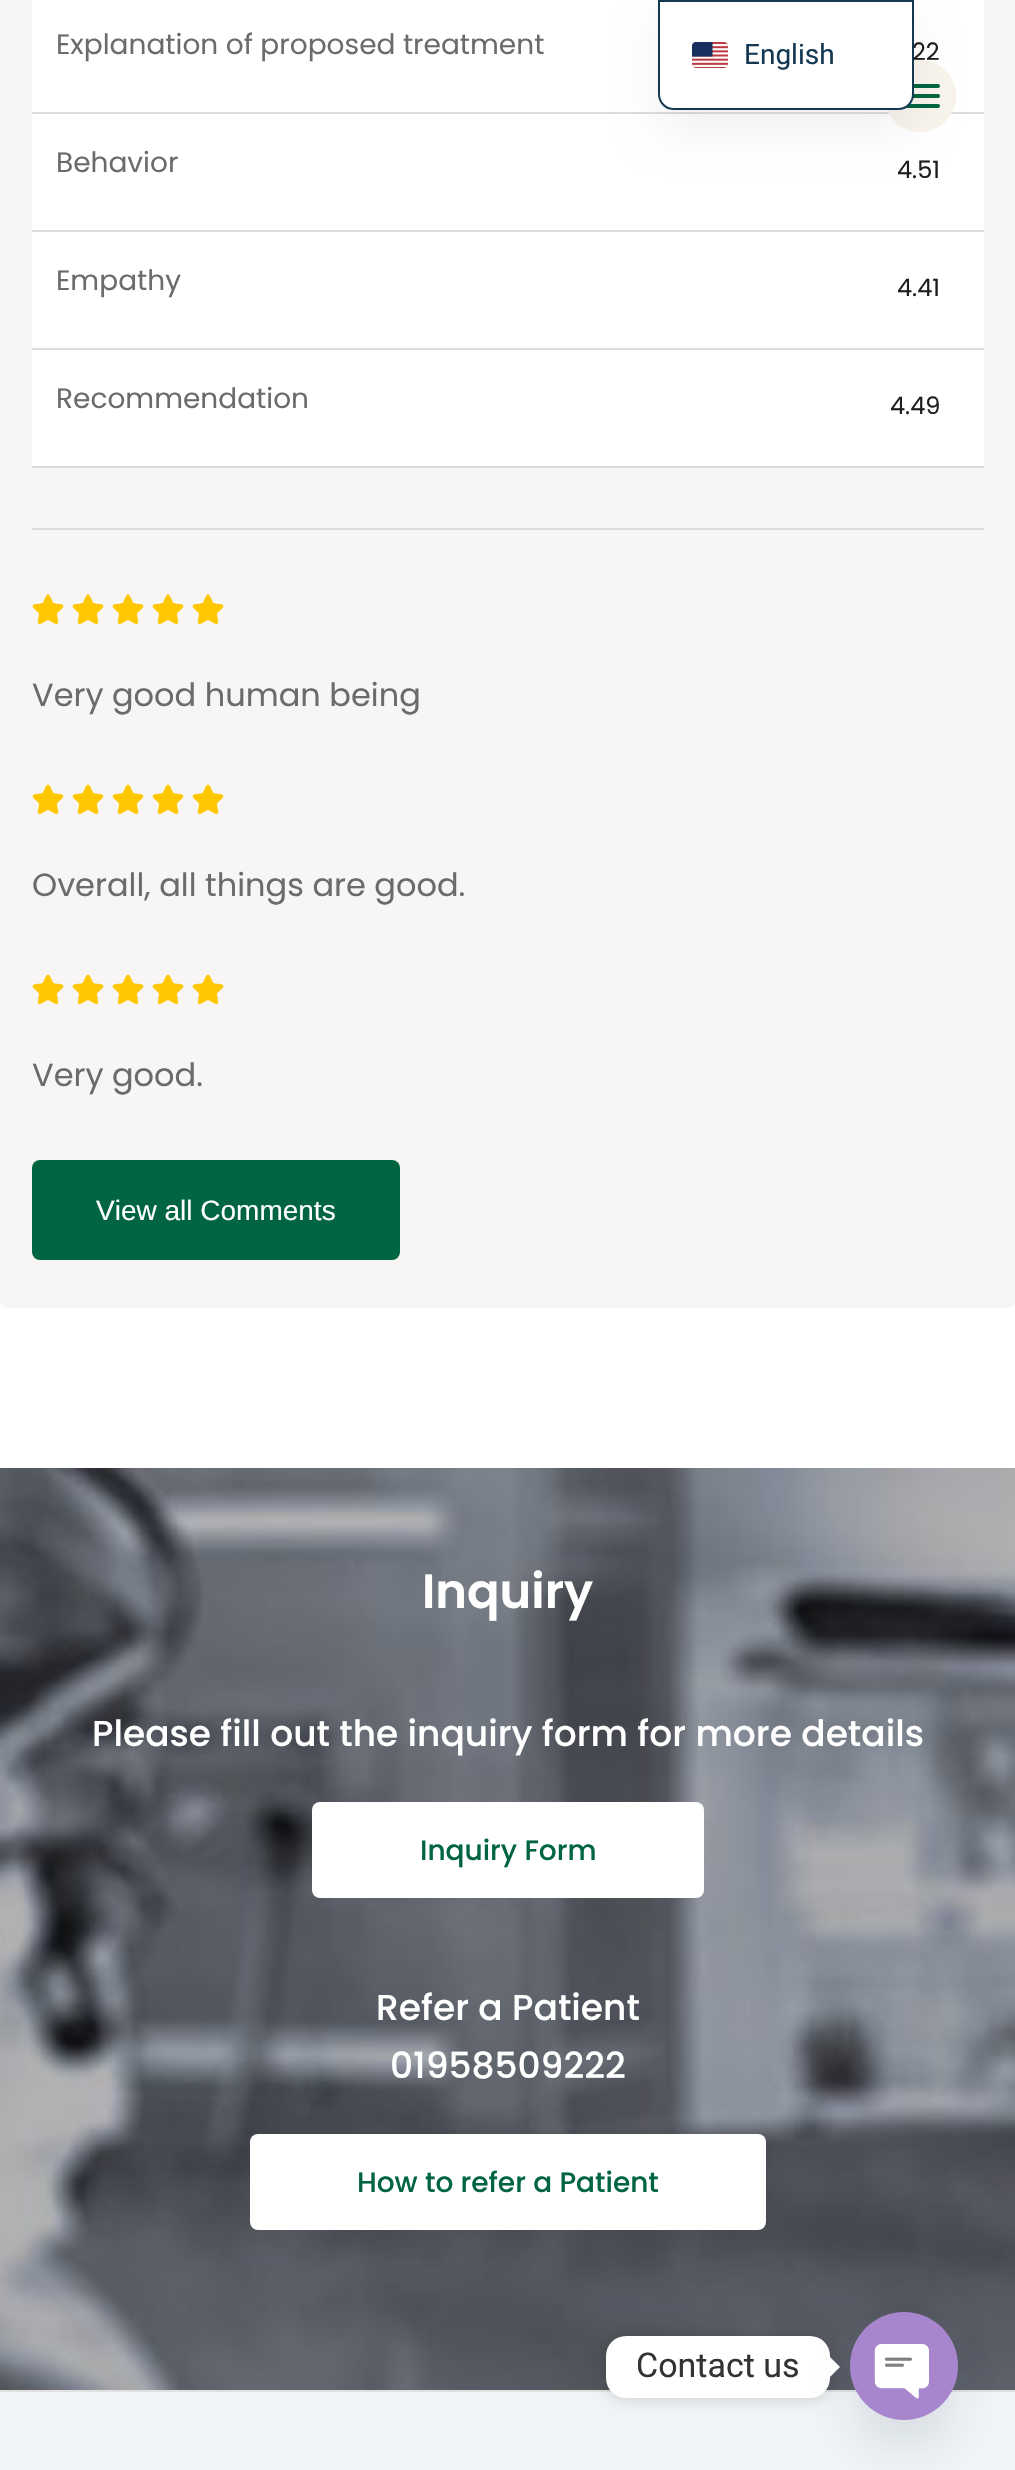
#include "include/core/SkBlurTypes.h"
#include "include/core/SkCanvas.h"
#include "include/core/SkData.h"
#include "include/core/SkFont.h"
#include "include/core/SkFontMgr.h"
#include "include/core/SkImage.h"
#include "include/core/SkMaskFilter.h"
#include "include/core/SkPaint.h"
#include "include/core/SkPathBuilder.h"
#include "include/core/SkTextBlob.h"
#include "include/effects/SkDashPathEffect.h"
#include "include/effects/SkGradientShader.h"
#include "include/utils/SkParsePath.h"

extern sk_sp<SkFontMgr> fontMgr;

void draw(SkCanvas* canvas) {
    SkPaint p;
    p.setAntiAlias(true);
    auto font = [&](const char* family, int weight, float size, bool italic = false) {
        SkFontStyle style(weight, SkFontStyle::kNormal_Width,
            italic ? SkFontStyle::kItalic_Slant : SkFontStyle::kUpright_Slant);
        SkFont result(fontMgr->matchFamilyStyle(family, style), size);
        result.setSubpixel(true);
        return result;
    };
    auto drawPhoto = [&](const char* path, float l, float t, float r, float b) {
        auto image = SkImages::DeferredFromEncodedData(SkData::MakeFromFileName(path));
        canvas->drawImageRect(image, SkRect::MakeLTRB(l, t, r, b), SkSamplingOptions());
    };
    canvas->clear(0xFFFFFFFF);
    p.setColor(0xFFF8F6F4);
    canvas->drawRoundRect(SkRect::MakeLTRB(0, -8, 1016, 1308), 8, 8, p);
    {
        const struct { float l, t, r, b; SkColor color; } items[] = {
            {32, 528, 984, 530, 0xFFDCDCDC},
            {32, 0, 984, 466, 0xFFFFFFFF},
            {32, 112, 984, 114, 0xFFDCDCDC},
        };
        for (auto [l, t, r, b, color] : items) {
            p.setColor(color);
            canvas->drawRect(SkRect::MakeLTRB(l, t, r, b), p);
        }
    }
    auto font1 = font("Poppins", 400, 28);
    p.setColor(0xFF6B6B6B);
    canvas->drawString("Explanation of proposed treatment", 56, 54, font1, p);
    auto font2 = font("Poppins", 400, 24);
    p.setColor(0xFF1E1E1E);
    canvas->drawString("22", 912, 60, font2, p);
    p.setColor(0xFFDCDCDC);
    canvas->drawRect(SkRect::MakeLTRB(32, 230, 984, 232), p);
    p.setColor(0xFF6B6B6B);
    canvas->drawString("Behavior", 56, 172, font1, p);
    p.setColor(0xFF1E1E1E);
    canvas->drawString("4.51", 897, 178, font2, p);
    p.setColor(0xFFDCDCDC);
    canvas->drawRect(SkRect::MakeLTRB(32, 348, 984, 350), p);
    p.setColor(0xFF6B6B6B);
    canvas->drawString("Empathy", 56, 290, font1, p);
    p.setColor(0xFF1E1E1E);
    canvas->drawString("4.41", 897, 296, font2, p);
    p.setColor(0xFFDCDCDC);
    canvas->drawRect(SkRect::MakeLTRB(32, 466, 984, 468), p);
    p.setColor(0xFF6B6B6B);
    canvas->drawString("Recommendation", 56, 408, font1, p);
    p.setColor(0xFF1E1E1E);
    canvas->drawString("4.49", 890, 414, font2, p);
    drawPhoto("media/1.png", 32, 594, 64, 624);
    drawPhoto("media/1.png", 72, 594, 104, 624);
    drawPhoto("media/1.png", 112, 594, 144, 624);
    drawPhoto("media/1.png", 152, 594, 184, 624);
    drawPhoto("media/1.png", 192, 594, 224, 624);
    auto font3 = font("Poppins", 400, 32);
    p.setColor(0xFF6B6B6B);
    canvas->drawString("Very good human being", 32, 706, font3, p);
    drawPhoto("media/1.png", 32, 784, 64, 814);
    drawPhoto("media/1.png", 72, 784, 104, 814);
    drawPhoto("media/1.png", 112, 784, 144, 814);
    drawPhoto("media/1.png", 152, 784, 184, 814);
    drawPhoto("media/1.png", 192, 784, 224, 814);
    canvas->drawString("Overall, all things are good.", 32, 896, font3, p);
    drawPhoto("media/1.png", 32, 974, 64, 1004);
    drawPhoto("media/1.png", 72, 974, 104, 1004);
    drawPhoto("media/1.png", 112, 974, 144, 1004);
    drawPhoto("media/1.png", 152, 974, 184, 1004);
    drawPhoto("media/1.png", 192, 974, 224, 1004);
    canvas->drawString("Very good.", 32, 1086, font3, p);
    p.setColor(0xFF006540);
    canvas->drawRoundRect(SkRect::MakeLTRB(32, 1160, 400, 1260), 8, 8, p);
    auto font4 = font("Liberation Sans", 400, 28);
    p.setColor(0xFFFFFFFF);
    canvas->drawString("View all Comments", 96, 1220, font4, p);
    p.setColor(0xFFF8F3EB);
    canvas->drawCircle(920, 96, 36, p);
    p.setStyle(SkPaint::kStroke_Style);
    p.setStrokeWidth(4);
    p.setStrokeCap(SkPaint::kRound_Cap);
    p.setStrokeJoin(SkPaint::kRound_Join);
    p.setColor(0xFF006540);
    canvas->drawPath(SkPathBuilder().moveTo(902, 86).lineTo(938, 86).moveTo(902, 96).lineTo(938, 96).moveTo(902, 106).lineTo(938, 106).detach(), p);
    p.setStyle(SkPaint::kFill_Style);
    p.setColor(0x0D000000);
    p.setMaskFilter(SkMaskFilter::MakeBlur(kNormal_SkBlurStyle, 20));
    canvas->drawRoundRect(SkRect::MakeLTRB(658, 20, 914, 130), 16, 16, p);
    p.setMaskFilter(nullptr);
    p.setColor(0xFFFFFFFF);
    canvas->drawPath(SkPathBuilder().moveTo(659, 1).lineTo(913, 1).lineTo(913, 94).cubicTo(913, 102.5f, 906.5f, 109, 898, 109).lineTo(674, 109).cubicTo(665.5f, 109, 659, 102.5f, 659, 94).close().detach(), p);
    p.setStyle(SkPaint::kStroke_Style);
    p.setStrokeWidth(2);
    p.setStrokeCap(SkPaint::kButt_Cap);
    p.setStrokeJoin(SkPaint::kMiter_Join);
    p.setColor(0xFF143852);
    canvas->drawPath(SkPathBuilder().moveTo(659, 1).lineTo(913, 1).lineTo(913, 94).cubicTo(913, 102.5f, 906.5f, 109, 898, 109).lineTo(674, 109).cubicTo(665.5f, 109, 659, 102.5f, 659, 94).close().detach(), p);
    drawPhoto("media/2.png", 692, 42, 728, 68);
    auto font5 = font("Roboto", 400, 28);
    p.setStyle(SkPaint::kFill_Style);
    canvas->drawString("English", 744, 64, font5, p);
    drawPhoto("media/3.png", 0, 1468, 1015, 2390);
    auto font6 = font("Poppins", 600, 48);
    p.setColor(0xFFFFFFFF);
    canvas->drawString("Inquiry", 422, 1608, font6, p);
    auto font7 = font("Poppins", 500, 36);
    canvas->drawString("Please fill out the inquiry form for more details", 92, 1746, font7, p);
    canvas->drawRoundRect(SkRect::MakeLTRB(312, 1802, 704, 1898), 8, 8, p);
    auto font8 = font("Poppins", 500, 28);
    p.setColor(0xFF006540);
    canvas->drawString("Inquiry Form", 420, 1860, font8, p);
    p.setColor(0xFFFFFFFF);
    canvas->drawString("Refer a Patient", 376, 2020, font7, p);
    canvas->drawString("01958509222", 390, 2078, font7, p);
    canvas->drawRoundRect(SkRect::MakeLTRB(250, 2134, 766, 2230), 8, 8, p);
    p.setColor(0xFF006540);
    canvas->drawString("How to refer a Patient", 357, 2192, font8, p);
    p.setColor(0xFFF2F5F7);
    canvas->drawRect(SkRect::MakeLTRB(0, 2392, 1015, 2470), p);
    p.setColor(0xFFE0E0E0);
    canvas->drawRect(SkRect::MakeLTRB(0, 2390, 1015, 2392), p);
    p.setColor(0x26000000);
    p.setMaskFilter(SkMaskFilter::MakeBlur(kNormal_SkBlurStyle, 7.5f));
    canvas->drawRoundRect(SkRect::MakeLTRB(606, 2338, 830, 2400), 20, 20, p);
    p.setMaskFilter(nullptr);
    p.setColor(0xFFFFFFFF);
    canvas->drawRoundRect(SkRect::MakeLTRB(606, 2336, 830, 2398), 20, 20, p);
    auto font9 = font("Roboto", 400, 34);
    p.setColor(0xFF333333);
    canvas->drawString("Contact us", 636, 2377, font9, p);
    p.setColor(0xFFFFFFFF);
    canvas->drawPath(SkPathBuilder().moveTo(830, 2377).lineTo(830, 2357).lineTo(840, 2367).close().detach(), p);
    p.setColor(0x2949687E);
    p.setMaskFilter(SkMaskFilter::MakeBlur(kNormal_SkBlurStyle, 24));
    canvas->drawRoundRect(SkRect::MakeLTRB(850, 2344, 958, 2452), 54, 54, p);
    p.setMaskFilter(nullptr);
    drawPhoto("media/4.png", 850, 2312, 958, 2420);
}
